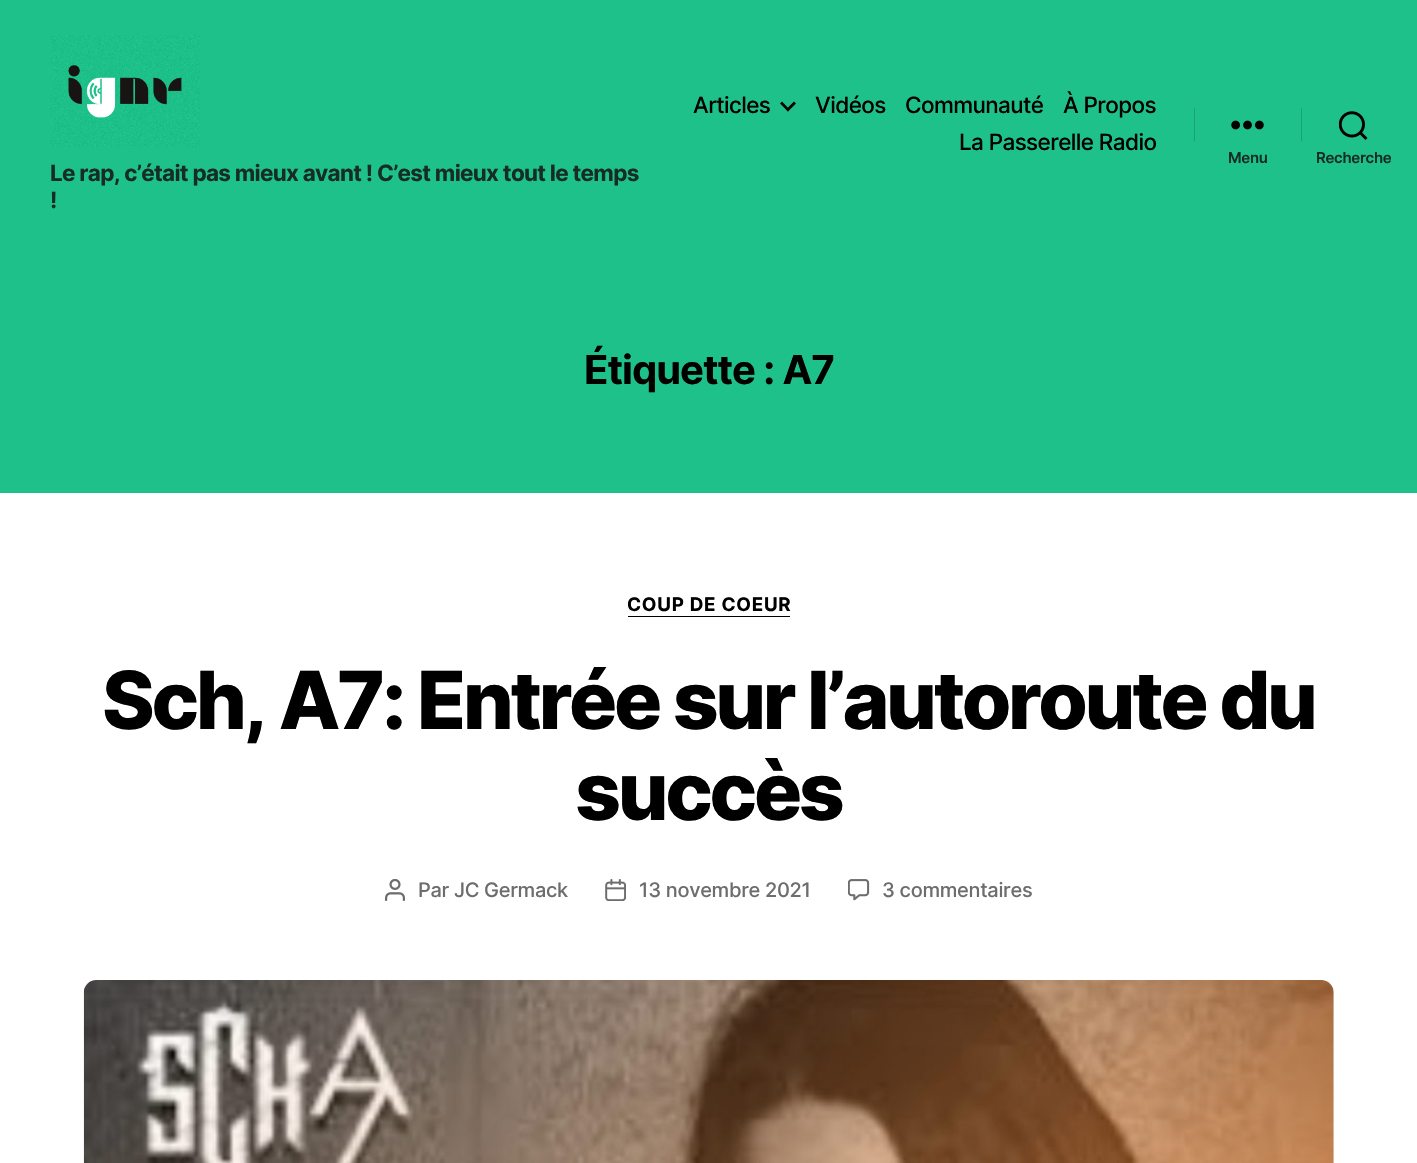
#include "include/core/SkBlurTypes.h"
#include "include/core/SkCanvas.h"
#include "include/core/SkData.h"
#include "include/core/SkFont.h"
#include "include/core/SkFontMgr.h"
#include "include/core/SkImage.h"
#include "include/core/SkMaskFilter.h"
#include "include/core/SkPaint.h"
#include "include/core/SkPathBuilder.h"
#include "include/core/SkTextBlob.h"
#include "include/effects/SkDashPathEffect.h"
#include "include/effects/SkGradientShader.h"
#include "include/utils/SkParsePath.h"

extern sk_sp<SkFontMgr> fontMgr;

void draw(SkCanvas* canvas) {
    SkPaint p;
    p.setAntiAlias(true);
    auto font = [&](const char* family, int weight, float size, bool italic = false) {
        SkFontStyle style(weight, SkFontStyle::kNormal_Width,
            italic ? SkFontStyle::kItalic_Slant : SkFontStyle::kUpright_Slant);
        SkFont result(fontMgr->matchFamilyStyle(family, style), size);
        result.setSubpixel(true);
        return result;
    };
    auto drawTracked = [&](const char* s, float x, float y, const SkFont& font, const SkPaint& ink, float letter, float word) {
        std::vector<SkGlyphID> glyphs(font.countText(s, strlen(s), SkTextEncoding::kUTF8));
        std::vector<float> xs(glyphs.size());
        font.textToGlyphs(s, strlen(s), SkTextEncoding::kUTF8, glyphs);
        font.getXPos(glyphs, xs, x);
        float extra = 0;
        for (size_t i = 0; i < glyphs.size(); i++) {
            xs[i] += extra;
            extra += letter + word * (glyphs[i] == font.unicharToGlyph(' '));
        }
        canvas->drawTextBlob(SkTextBlob::MakeFromPosHGlyphs(glyphs, xs, y, font), 0, 0, ink);
    };
    auto drawPhoto = [&](const char* path, float l, float t, float r, float b) {
        auto image = SkImages::DeferredFromEncodedData(SkData::MakeFromFileName(path));
        canvas->drawImageRect(image, SkRect::MakeLTRB(l, t, r, b), SkSamplingOptions());
    };
    canvas->clear(0xFFFFFFFF);
    p.setColor(0xFF1FC18B);
    canvas->drawRect(SkRect::MakeLTRB(0, 0, 1417, 493), p);
    auto font1 = font("Inter", 500, 22.5f);
    p.setColor(0xFF000000);
    drawTracked("Articles", 693, 113, font1, p, -0.6f, 0);
    canvas->drawPath(SkPathBuilder().moveTo(780, 103.5f).lineTo(782, 101.5f).lineTo(789.5f, 109.5f).lineTo(788, 111.5f).close().detach(), p);
    canvas->drawPath(SkPathBuilder().moveTo(786, 109.5f).lineTo(794, 101.5f).lineTo(796, 103.5f).lineTo(788, 111.5f).close().detach(), p);
    {
        const struct { const char* s; float x, y; } items[] = {
            {"Vidéos", 815, 113},
            {"Communauté", 905, 113},
            {"À Propos", 1063, 113},
            {"La Passerelle Radio", 959, 150},
        };
        for (auto [s, x, y] : items) {
            drawTracked(s, x, y, font1, p, -0.6f, 0);
        }
    }
    p.setColor(0xFF18A475);
    canvas->drawRect(SkRect::MakeLTRB(1194, 108, 1195, 141), p);
    drawPhoto("media/1.png", 1231, 120, 1264, 130);
    auto font2 = font("Inter", 600, 15);
    p.setColor(0xFF152D25);
    drawTracked("Menu", 1228, 163, font2, p, -0.3f, 0);
    p.setColor(0xFF18A475);
    canvas->drawRect(SkRect::MakeLTRB(1301, 108, 1302, 141), p);
    drawPhoto("media/2.png", 1339, 111, 1368, 140);
    p.setColor(0xFF152D25);
    drawTracked("Recherche", 1316, 163, font2, p, -0.3f, 0);
    drawPhoto("media/3.png", 50, 35, 200, 148);
    auto font3 = font("Inter", 700, 22.5f);
    drawTracked("Le rap, c’était pas mieux avant ! C’est mieux tout le temps", 50, 181, font3, p, -0.7f, 0);
    drawTracked("!", 50, 208, font3, p, -0.7f, 0);
    auto font4 = font("Inter", 700, 40);
    p.setColor(0xFF000000);
    drawTracked("Étiquette : A7", 584, 384, font4, p, -1, 0);
    canvas->drawRect(SkRect::MakeLTRB(628, 616, 790, 617), p);
    auto font5 = font("Inter", 700, 18.75f);
    drawTracked("COUP DE COEUR", 627, 611, font5, p, 0.75f, 0);
    auto font6 = font("Inter", 800, 80);
    drawTracked("Sch, A7: Entrée sur l’autoroute du", 102, 729, font6, p, -3.35f, 0);
    drawTracked("succès", 575, 820, font6, p, -3.35f, 0);
    drawPhoto("media/4.png", 385, 879, 405, 901);
    auto font7 = font("Inter", 500, 20);
    p.setColor(0xFF6D6D6D);
    drawTracked("Par JC Germack", 418, 897, font7, p, -0.3f, 0);
    drawPhoto("media/5.png", 605, 879, 626, 901);
    drawTracked("13 novembre 2021", 639, 897, font7, p, -0.3f, 0);
    drawPhoto("media/6.png", 848, 879, 870, 901);
    drawTracked("3 commentaires", 882, 897, font7, p, -0.3f, 0);
    drawPhoto("media/7.png", 83, 980, 1334, 1163);
}
